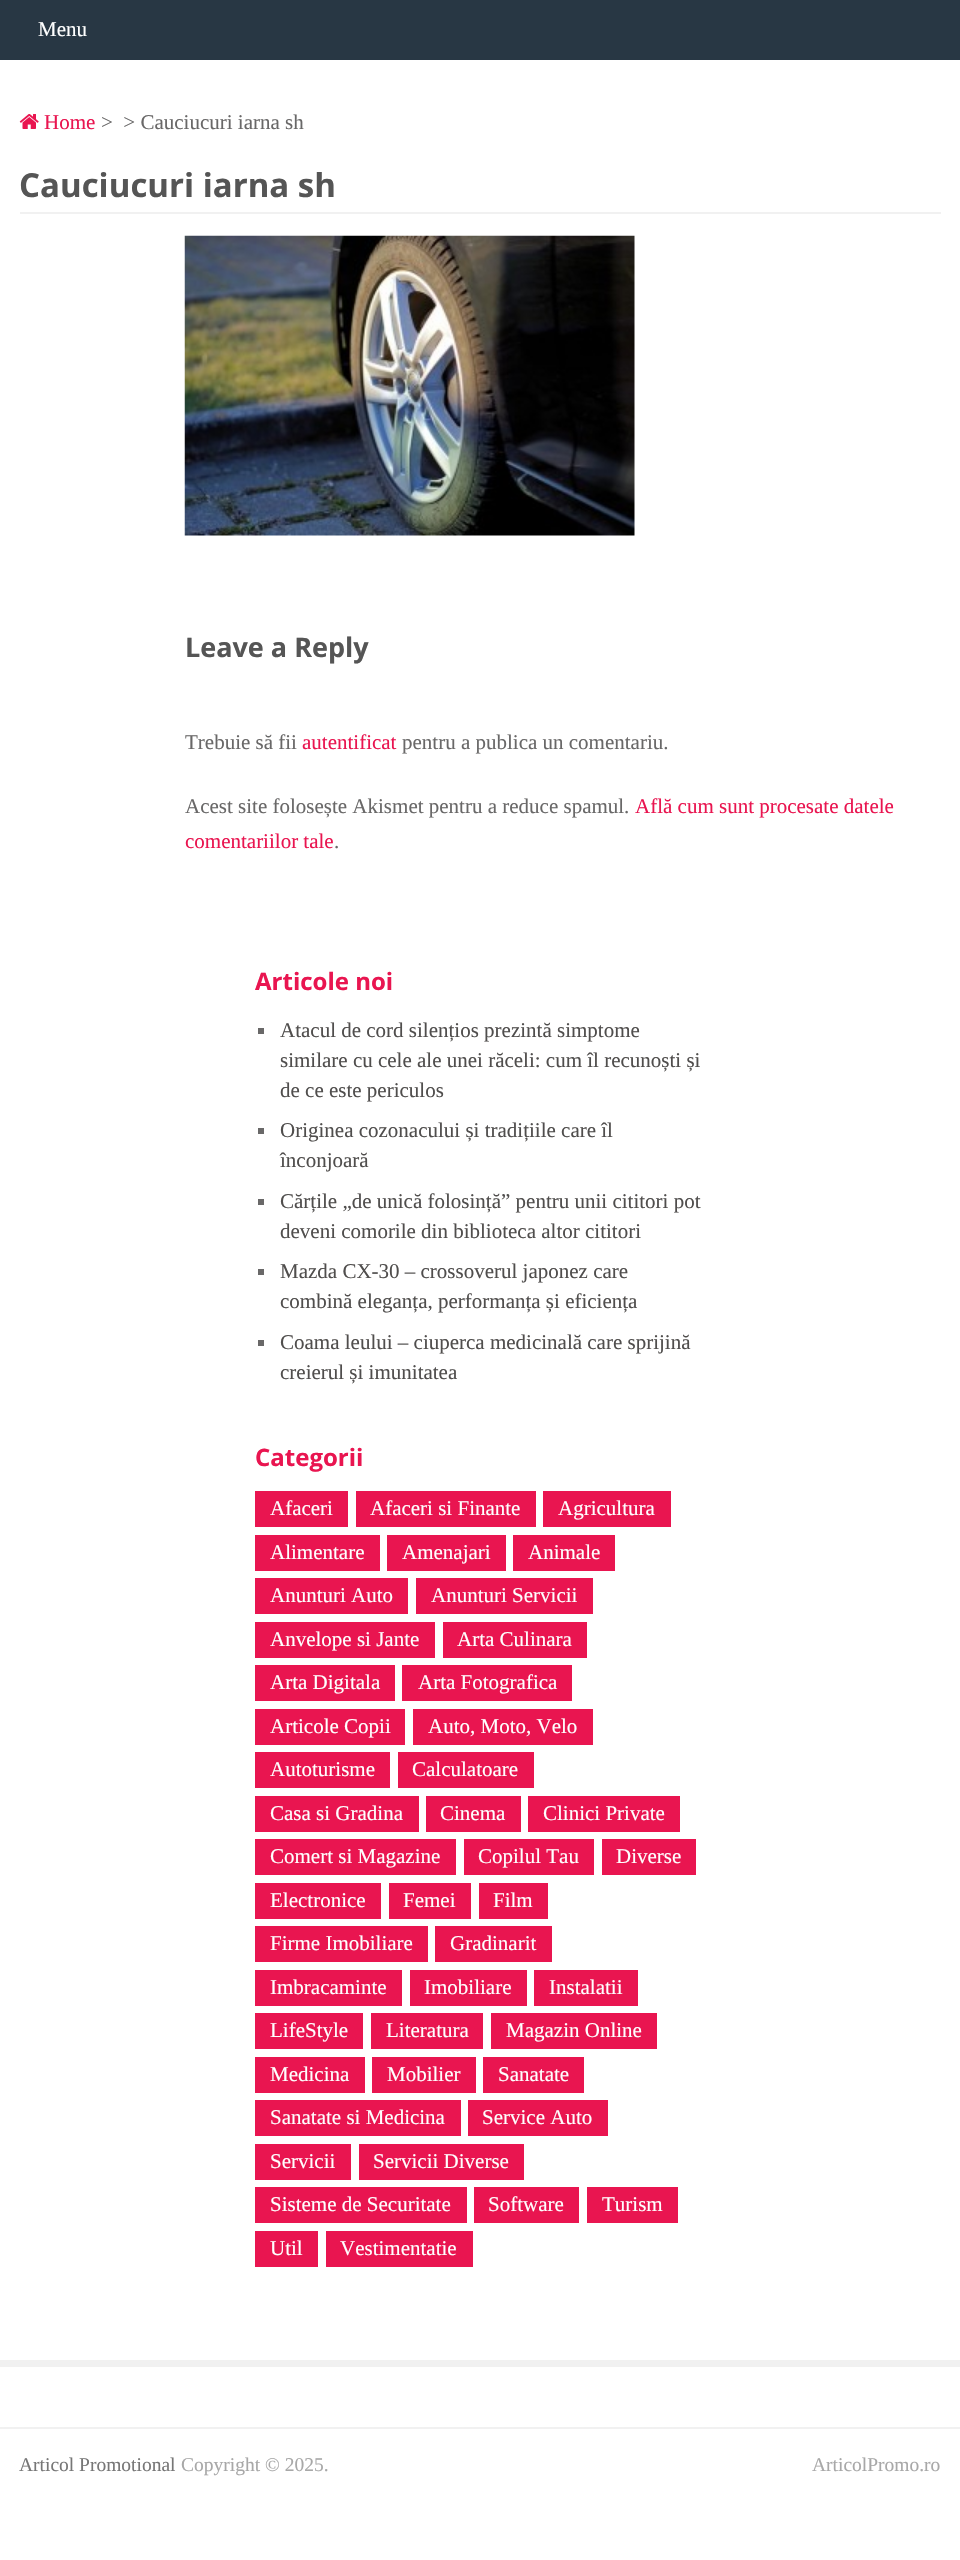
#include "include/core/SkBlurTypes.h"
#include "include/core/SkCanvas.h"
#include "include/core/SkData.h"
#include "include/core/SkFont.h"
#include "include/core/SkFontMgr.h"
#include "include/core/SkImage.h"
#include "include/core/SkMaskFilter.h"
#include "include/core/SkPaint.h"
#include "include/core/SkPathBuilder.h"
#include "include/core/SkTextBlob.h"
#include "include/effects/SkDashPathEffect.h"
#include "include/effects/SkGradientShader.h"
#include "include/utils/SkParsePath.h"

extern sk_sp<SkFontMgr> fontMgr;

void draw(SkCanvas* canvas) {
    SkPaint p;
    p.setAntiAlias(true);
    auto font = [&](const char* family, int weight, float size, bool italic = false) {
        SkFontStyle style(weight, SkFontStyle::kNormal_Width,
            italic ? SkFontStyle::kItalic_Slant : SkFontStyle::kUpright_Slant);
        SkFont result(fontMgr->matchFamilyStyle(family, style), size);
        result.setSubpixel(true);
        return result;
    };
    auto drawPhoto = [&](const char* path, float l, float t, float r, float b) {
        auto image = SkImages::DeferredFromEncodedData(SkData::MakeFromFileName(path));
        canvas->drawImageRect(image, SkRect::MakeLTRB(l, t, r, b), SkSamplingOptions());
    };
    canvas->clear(0xFFFFFFFF);
    p.setColor(0xFF283744);
    canvas->drawRect(SkRect::MakeLTRB(0, 0, 960, 60), p);
    auto font1 = font("Liberation Serif", 400, 21);
    p.setColor(0xFFFFFFFF);
    canvas->drawString("Menu", 38, 36, font1, p);
    drawPhoto("media/1.png", 19, 114, 39, 129);
    p.setColor(0xFFE91550);
    canvas->drawString("Home", 44, 129, font1, p);
    p.setColor(0xFF696868);
    canvas->drawString(">  > Cauciucuri iarna sh", 101, 129, font1, p);
    p.setColor(0xFFF1F1F1);
    canvas->drawRect(SkRect::MakeLTRB(20, 212, 941, 214), p);
    auto font2 = font("Open Sans", 700, 33);
    p.setColor(0xFF555555);
    canvas->drawString("Cauciucuri iarna sh", 19, 197, font2, p);
    drawPhoto("media/2.png", 184, 235, 635, 536);
    auto font3 = font("Open Sans", 700, 27);
    canvas->drawString("Leave a Reply", 185, 657, font3, p);
    p.setColor(0xFF696868);
    canvas->drawString("Trebuie să fii", 185, 749, font1, p);
    p.setColor(0xFFE91550);
    canvas->drawString("autentificat", 302, 749, font1, p);
    p.setColor(0xFF696868);
    canvas->drawString("pentru a publica un comentariu.", 402, 749, font1, p);
    canvas->drawString("Acest site folosește Akismet pentru a reduce spamul.", 185, 813, font1, p);
    p.setColor(0xFFE91550);
    canvas->drawString("Află cum sunt procesate datele", 635, 813, font1, p);
    canvas->drawString("comentariilor tale", 185, 848, font1, p);
    p.setColor(0xFF696868);
    canvas->drawString(".", 334, 848, font1, p);
    auto font4 = font("Open Sans", 700, 24);
    p.setColor(0xFFE91550);
    canvas->drawString("Articole noi", 255, 990, font4, p);
    p.setColor(0xFF696868);
    canvas->drawRect(SkRect::MakeLTRB(258, 1028, 264, 1034), p);
    p.setColor(0xFF504E4D);
    {
        const struct { const char* s; float x, y; } items[] = {
            {"Atacul de cord silențios prezintă simptome", 280, 1037},
            {"similare cu cele ale unei răceli: cum îl recunoști și", 280, 1067},
            {"de ce este periculos", 280, 1097},
        };
        for (auto [s, x, y] : items) {
            canvas->drawString(s, x, y, font1, p);
        }
    }
    p.setColor(0xFF696868);
    canvas->drawRect(SkRect::MakeLTRB(258, 1128, 264, 1134), p);
    p.setColor(0xFF504E4D);
    canvas->drawString("Originea cozonacului și tradițiile care îl", 280, 1137, font1, p);
    canvas->drawString("înconjoară", 280, 1167, font1, p);
    p.setColor(0xFF696868);
    canvas->drawRect(SkRect::MakeLTRB(258, 1199, 264, 1205), p);
    p.setColor(0xFF504E4D);
    canvas->drawString("Cărțile „de unică folosință” pentru unii cititori pot", 280, 1208, font1, p);
    canvas->drawString("deveni comorile din biblioteca altor cititori", 280, 1238, font1, p);
    p.setColor(0xFF696868);
    canvas->drawRect(SkRect::MakeLTRB(258, 1269, 264, 1275), p);
    p.setColor(0xFF504E4D);
    canvas->drawString("Mazda CX-30 – crossoverul japonez care", 280, 1278, font1, p);
    canvas->drawString("combină eleganța, performanța și eficiența", 280, 1308, font1, p);
    p.setColor(0xFF696868);
    canvas->drawRect(SkRect::MakeLTRB(258, 1340, 264, 1346), p);
    p.setColor(0xFF504E4D);
    canvas->drawString("Coama leului – ciuperca medicinală care sprijină", 280, 1349, font1, p);
    canvas->drawString("creierul și imunitatea", 280, 1379, font1, p);
    p.setColor(0xFFE91550);
    canvas->drawString("Categorii", 255, 1466, font4, p);
    canvas->drawRect(SkRect::MakeLTRB(255, 1491, 348, 1527), p);
    p.setColor(0xFFFFFFFF);
    canvas->drawString("Afaceri", 270, 1515, font1, p);
    p.setColor(0xFFE91550);
    canvas->drawRect(SkRect::MakeLTRB(356, 1491, 536, 1527), p);
    p.setColor(0xFFFFFFFF);
    canvas->drawString("Afaceri si Finante", 370, 1515, font1, p);
    p.setColor(0xFFE91550);
    canvas->drawRect(SkRect::MakeLTRB(543, 1491, 671, 1527), p);
    p.setColor(0xFFFFFFFF);
    canvas->drawString("Agricultura", 558, 1515, font1, p);
    p.setColor(0xFFE91550);
    canvas->drawRect(SkRect::MakeLTRB(255, 1535, 380, 1571), p);
    p.setColor(0xFFFFFFFF);
    canvas->drawString("Alimentare", 270, 1559, font1, p);
    p.setColor(0xFFE91550);
    canvas->drawRect(SkRect::MakeLTRB(387, 1535, 506, 1571), p);
    p.setColor(0xFFFFFFFF);
    canvas->drawString("Amenajari", 402, 1559, font1, p);
    p.setColor(0xFFE91550);
    canvas->drawRect(SkRect::MakeLTRB(513, 1535, 615, 1571), p);
    p.setColor(0xFFFFFFFF);
    canvas->drawString("Animale", 528, 1559, font1, p);
    p.setColor(0xFFE91550);
    canvas->drawRect(SkRect::MakeLTRB(255, 1578, 408, 1614), p);
    p.setColor(0xFFFFFFFF);
    canvas->drawString("Anunturi Auto", 270, 1602, font1, p);
    p.setColor(0xFFE91550);
    canvas->drawRect(SkRect::MakeLTRB(416, 1578, 593, 1614), p);
    p.setColor(0xFFFFFFFF);
    canvas->drawString("Anunturi Servicii", 431, 1602, font1, p);
    p.setColor(0xFFE91550);
    canvas->drawRect(SkRect::MakeLTRB(255, 1622, 435, 1658), p);
    p.setColor(0xFFFFFFFF);
    canvas->drawString("Anvelope si Jante", 270, 1646, font1, p);
    p.setColor(0xFFE91550);
    canvas->drawRect(SkRect::MakeLTRB(443, 1622, 587, 1658), p);
    p.setColor(0xFFFFFFFF);
    canvas->drawString("Arta Culinara", 457, 1646, font1, p);
    p.setColor(0xFFE91550);
    canvas->drawRect(SkRect::MakeLTRB(255, 1665, 395, 1701), p);
    p.setColor(0xFFFFFFFF);
    canvas->drawString("Arta Digitala", 270, 1689, font1, p);
    p.setColor(0xFFE91550);
    canvas->drawRect(SkRect::MakeLTRB(402, 1665, 572, 1701), p);
    p.setColor(0xFFFFFFFF);
    canvas->drawString("Arta Fotografica", 418, 1689, font1, p);
    p.setColor(0xFFE91550);
    canvas->drawRect(SkRect::MakeLTRB(255, 1709, 405, 1745), p);
    p.setColor(0xFFFFFFFF);
    canvas->drawString("Articole Copii", 270, 1733, font1, p);
    p.setColor(0xFFE91550);
    canvas->drawRect(SkRect::MakeLTRB(413, 1709, 593, 1745), p);
    p.setColor(0xFFFFFFFF);
    canvas->drawString("Auto, Moto, Velo", 428, 1733, font1, p);
    p.setColor(0xFFE91550);
    canvas->drawRect(SkRect::MakeLTRB(255, 1752, 390, 1788), p);
    p.setColor(0xFFFFFFFF);
    canvas->drawString("Autoturisme", 270, 1776, font1, p);
    p.setColor(0xFFE91550);
    canvas->drawRect(SkRect::MakeLTRB(398, 1752, 534, 1788), p);
    p.setColor(0xFFFFFFFF);
    canvas->drawString("Calculatoare", 412, 1776, font1, p);
    p.setColor(0xFFE91550);
    canvas->drawRect(SkRect::MakeLTRB(255, 1796, 419, 1832), p);
    p.setColor(0xFFFFFFFF);
    canvas->drawString("Casa si Gradina", 270, 1820, font1, p);
    p.setColor(0xFFE91550);
    canvas->drawRect(SkRect::MakeLTRB(426, 1796, 521, 1832), p);
    p.setColor(0xFFFFFFFF);
    canvas->drawString("Cinema", 440, 1820, font1, p);
    p.setColor(0xFFE91550);
    canvas->drawRect(SkRect::MakeLTRB(528, 1796, 680, 1832), p);
    p.setColor(0xFFFFFFFF);
    canvas->drawString("Clinici Private", 543, 1820, font1, p);
    p.setColor(0xFFE91550);
    canvas->drawRect(SkRect::MakeLTRB(255, 1839, 456, 1875), p);
    p.setColor(0xFFFFFFFF);
    canvas->drawString("Comert si Magazine", 270, 1863, font1, p);
    p.setColor(0xFFE91550);
    canvas->drawRect(SkRect::MakeLTRB(464, 1839, 594, 1875), p);
    p.setColor(0xFFFFFFFF);
    canvas->drawString("Copilul Tau", 478, 1863, font1, p);
    p.setColor(0xFFE91550);
    canvas->drawRect(SkRect::MakeLTRB(602, 1839, 696, 1875), p);
    p.setColor(0xFFFFFFFF);
    canvas->drawString("Diverse", 616, 1863, font1, p);
    p.setColor(0xFFE91550);
    canvas->drawRect(SkRect::MakeLTRB(255, 1883, 381, 1919), p);
    p.setColor(0xFFFFFFFF);
    canvas->drawString("Electronice", 270, 1907, font1, p);
    p.setColor(0xFFE91550);
    canvas->drawRect(SkRect::MakeLTRB(389, 1883, 471, 1919), p);
    p.setColor(0xFFFFFFFF);
    canvas->drawString("Femei", 403, 1907, font1, p);
    p.setColor(0xFFE91550);
    canvas->drawRect(SkRect::MakeLTRB(479, 1883, 548, 1919), p);
    p.setColor(0xFFFFFFFF);
    canvas->drawString("Film", 493, 1907, font1, p);
    p.setColor(0xFFE91550);
    canvas->drawRect(SkRect::MakeLTRB(255, 1926, 428, 1962), p);
    p.setColor(0xFFFFFFFF);
    canvas->drawString("Firme Imobiliare", 270, 1950, font1, p);
    p.setColor(0xFFE91550);
    canvas->drawRect(SkRect::MakeLTRB(435, 1926, 552, 1962), p);
    p.setColor(0xFFFFFFFF);
    canvas->drawString("Gradinarit", 450, 1950, font1, p);
    p.setColor(0xFFE91550);
    canvas->drawRect(SkRect::MakeLTRB(255, 1970, 402, 2006), p);
    p.setColor(0xFFFFFFFF);
    canvas->drawString("Imbracaminte", 270, 1994, font1, p);
    p.setColor(0xFFE91550);
    canvas->drawRect(SkRect::MakeLTRB(410, 1970, 527, 2006), p);
    p.setColor(0xFFFFFFFF);
    canvas->drawString("Imobiliare", 424, 1994, font1, p);
    p.setColor(0xFFE91550);
    canvas->drawRect(SkRect::MakeLTRB(534, 1970, 638, 2006), p);
    p.setColor(0xFFFFFFFF);
    canvas->drawString("Instalatii", 549, 1994, font1, p);
    p.setColor(0xFFE91550);
    canvas->drawRect(SkRect::MakeLTRB(255, 2013, 363, 2049), p);
    p.setColor(0xFFFFFFFF);
    canvas->drawString("LifeStyle", 270, 2037, font1, p);
    p.setColor(0xFFE91550);
    canvas->drawRect(SkRect::MakeLTRB(371, 2013, 483, 2049), p);
    p.setColor(0xFFFFFFFF);
    canvas->drawString("Literatura", 386, 2037, font1, p);
    p.setColor(0xFFE91550);
    canvas->drawRect(SkRect::MakeLTRB(491, 2013, 657, 2049), p);
    p.setColor(0xFFFFFFFF);
    canvas->drawString("Magazin Online", 506, 2037, font1, p);
    p.setColor(0xFFE91550);
    canvas->drawRect(SkRect::MakeLTRB(255, 2057, 365, 2093), p);
    p.setColor(0xFFFFFFFF);
    canvas->drawString("Medicina", 270, 2081, font1, p);
    p.setColor(0xFFE91550);
    canvas->drawRect(SkRect::MakeLTRB(372, 2057, 476, 2093), p);
    p.setColor(0xFFFFFFFF);
    canvas->drawString("Mobilier", 387, 2081, font1, p);
    p.setColor(0xFFE91550);
    canvas->drawRect(SkRect::MakeLTRB(483, 2057, 584, 2093), p);
    p.setColor(0xFFFFFFFF);
    canvas->drawString("Sanatate", 498, 2081, font1, p);
    p.setColor(0xFFE91550);
    canvas->drawRect(SkRect::MakeLTRB(255, 2100, 461, 2136), p);
    p.setColor(0xFFFFFFFF);
    canvas->drawString("Sanatate si Medicina", 270, 2124, font1, p);
    p.setColor(0xFFE91550);
    canvas->drawRect(SkRect::MakeLTRB(468, 2100, 608, 2136), p);
    p.setColor(0xFFFFFFFF);
    canvas->drawString("Service Auto", 482, 2124, font1, p);
    p.setColor(0xFFE91550);
    canvas->drawRect(SkRect::MakeLTRB(255, 2144, 351, 2180), p);
    p.setColor(0xFFFFFFFF);
    canvas->drawString("Servicii", 270, 2168, font1, p);
    p.setColor(0xFFE91550);
    canvas->drawRect(SkRect::MakeLTRB(359, 2144, 524, 2180), p);
    p.setColor(0xFFFFFFFF);
    canvas->drawString("Servicii Diverse", 373, 2168, font1, p);
    p.setColor(0xFFE91550);
    canvas->drawRect(SkRect::MakeLTRB(255, 2187, 467, 2223), p);
    p.setColor(0xFFFFFFFF);
    canvas->drawString("Sisteme de Securitate", 270, 2211, font1, p);
    p.setColor(0xFFE91550);
    canvas->drawRect(SkRect::MakeLTRB(474, 2187, 579, 2223), p);
    p.setColor(0xFFFFFFFF);
    canvas->drawString("Software", 488, 2211, font1, p);
    p.setColor(0xFFE91550);
    canvas->drawRect(SkRect::MakeLTRB(587, 2187, 678, 2223), p);
    p.setColor(0xFFFFFFFF);
    canvas->drawString("Turism", 602, 2211, font1, p);
    p.setColor(0xFFE91550);
    canvas->drawRect(SkRect::MakeLTRB(255, 2231, 318, 2267), p);
    p.setColor(0xFFFFFFFF);
    canvas->drawString("Util", 270, 2255, font1, p);
    p.setColor(0xFFE91550);
    canvas->drawRect(SkRect::MakeLTRB(326, 2231, 473, 2267), p);
    p.setColor(0xFFFFFFFF);
    canvas->drawString("Vestimentatie", 340, 2255, font1, p);
    p.setColor(0xFFF1F1F1);
    canvas->drawRect(SkRect::MakeLTRB(0, 2360, 960, 2367), p);
    canvas->drawRect(SkRect::MakeLTRB(0, 2427, 960, 2429), p);
    auto font5 = font("Liberation Serif", 400, 19.5f);
    p.setColor(0xFF777777);
    canvas->drawString("Articol Promotional", 19, 2471, font5, p);
    p.setColor(0xFFA8A8A8);
    canvas->drawString("Copyright © 2025.", 181, 2471, font5, p);
    canvas->drawString("ArticolPromo.ro", 812, 2471, font5, p);
}
